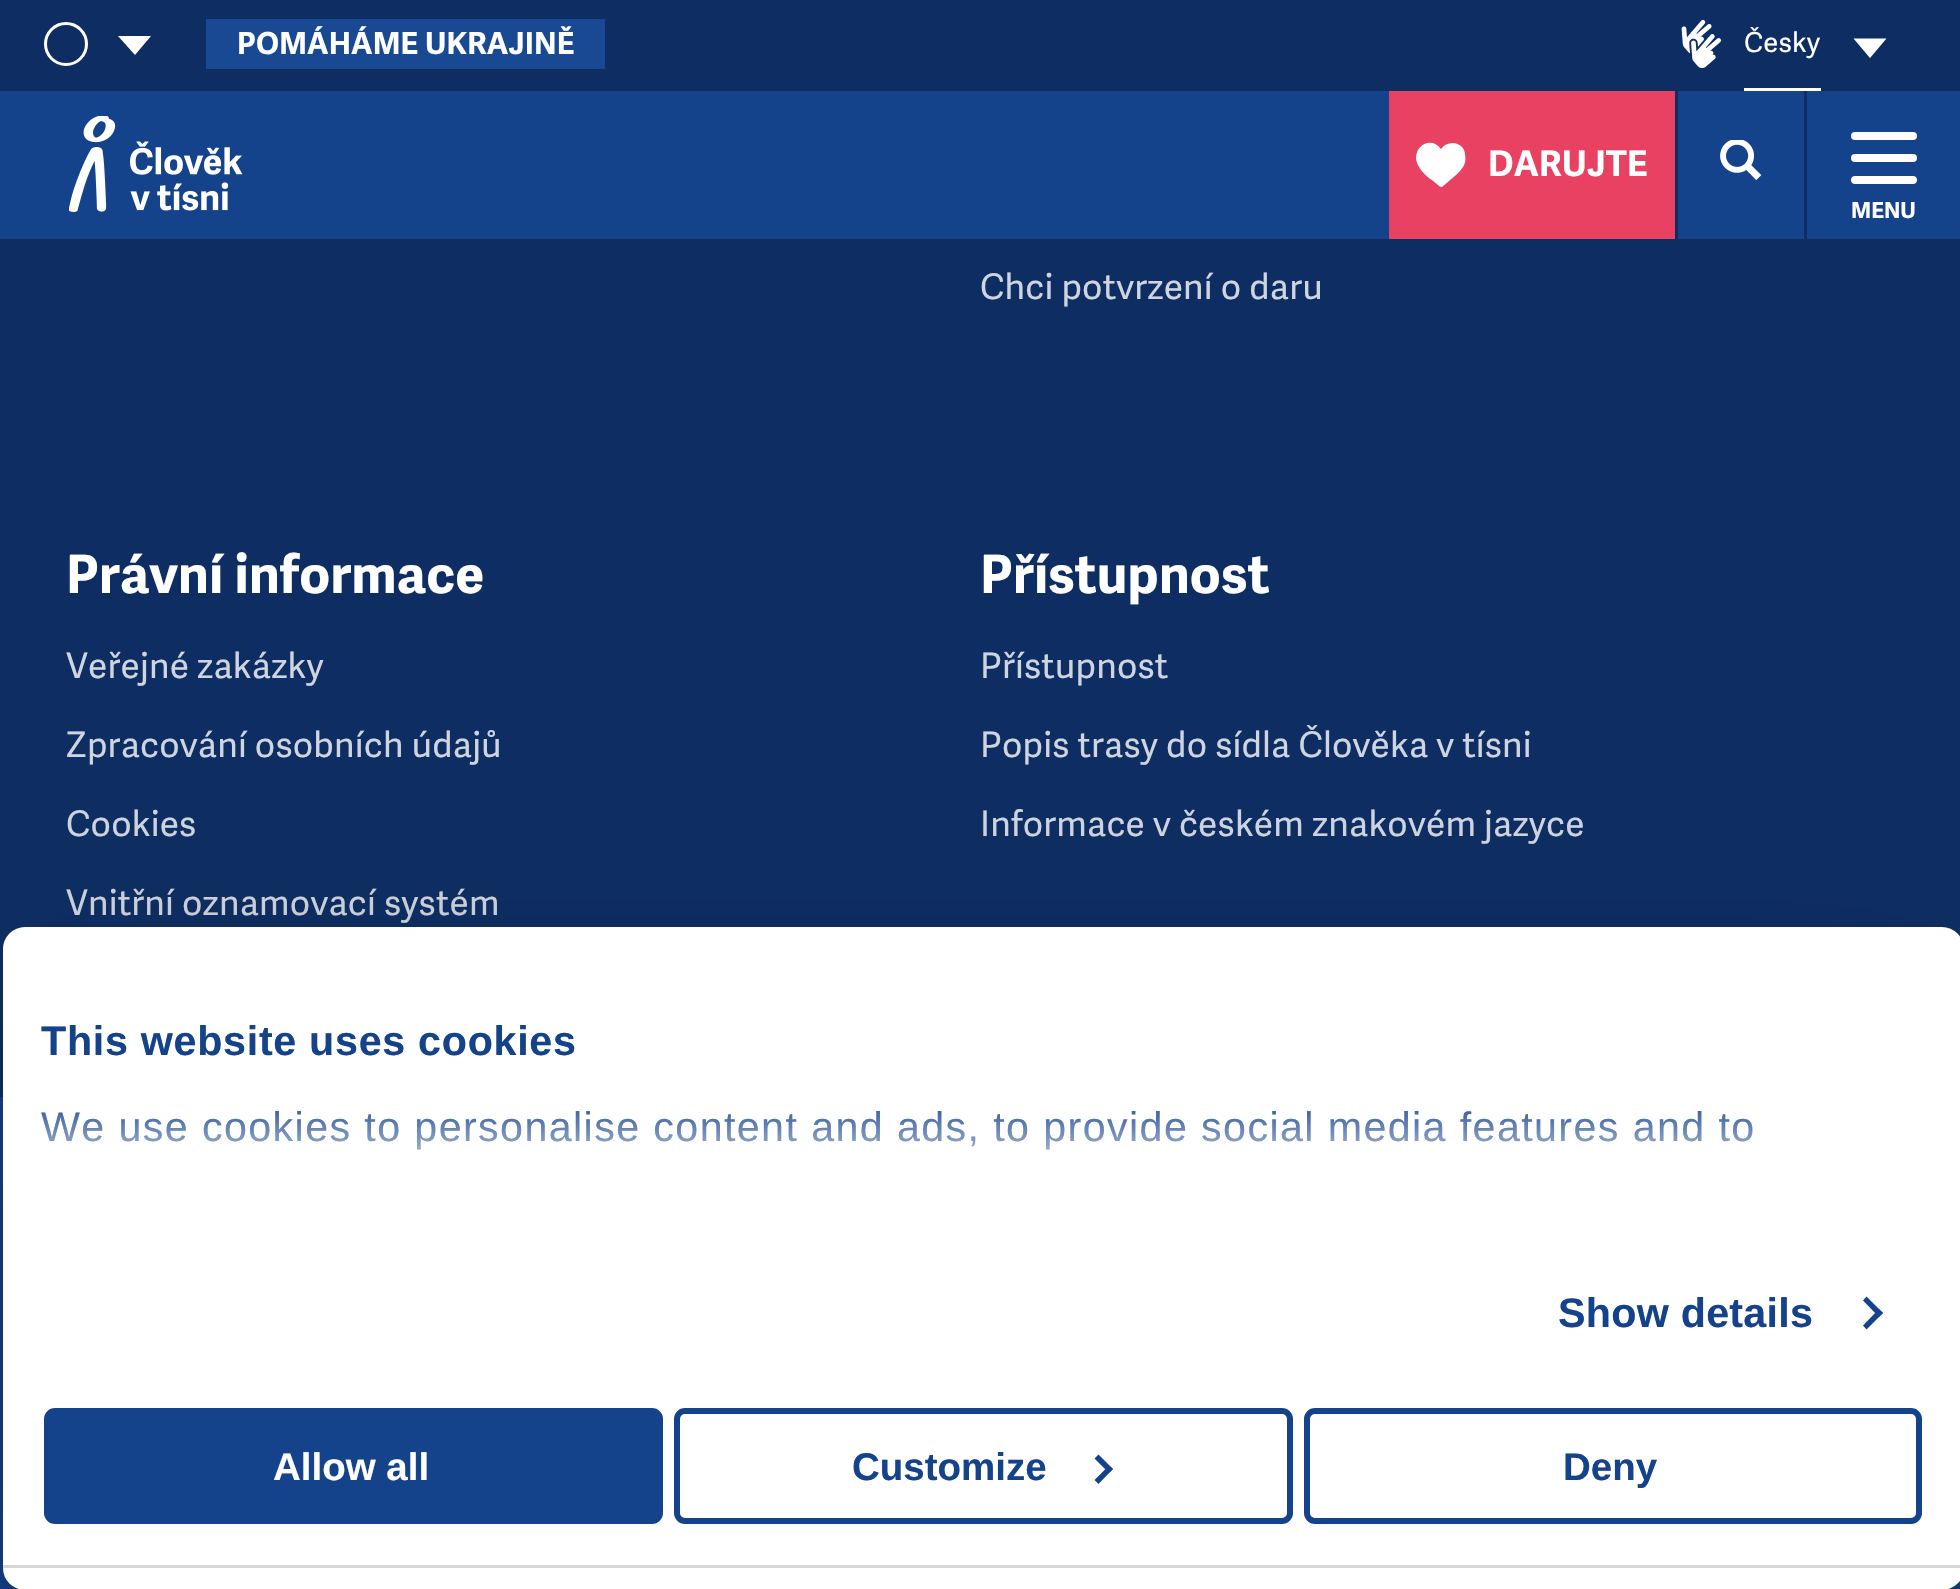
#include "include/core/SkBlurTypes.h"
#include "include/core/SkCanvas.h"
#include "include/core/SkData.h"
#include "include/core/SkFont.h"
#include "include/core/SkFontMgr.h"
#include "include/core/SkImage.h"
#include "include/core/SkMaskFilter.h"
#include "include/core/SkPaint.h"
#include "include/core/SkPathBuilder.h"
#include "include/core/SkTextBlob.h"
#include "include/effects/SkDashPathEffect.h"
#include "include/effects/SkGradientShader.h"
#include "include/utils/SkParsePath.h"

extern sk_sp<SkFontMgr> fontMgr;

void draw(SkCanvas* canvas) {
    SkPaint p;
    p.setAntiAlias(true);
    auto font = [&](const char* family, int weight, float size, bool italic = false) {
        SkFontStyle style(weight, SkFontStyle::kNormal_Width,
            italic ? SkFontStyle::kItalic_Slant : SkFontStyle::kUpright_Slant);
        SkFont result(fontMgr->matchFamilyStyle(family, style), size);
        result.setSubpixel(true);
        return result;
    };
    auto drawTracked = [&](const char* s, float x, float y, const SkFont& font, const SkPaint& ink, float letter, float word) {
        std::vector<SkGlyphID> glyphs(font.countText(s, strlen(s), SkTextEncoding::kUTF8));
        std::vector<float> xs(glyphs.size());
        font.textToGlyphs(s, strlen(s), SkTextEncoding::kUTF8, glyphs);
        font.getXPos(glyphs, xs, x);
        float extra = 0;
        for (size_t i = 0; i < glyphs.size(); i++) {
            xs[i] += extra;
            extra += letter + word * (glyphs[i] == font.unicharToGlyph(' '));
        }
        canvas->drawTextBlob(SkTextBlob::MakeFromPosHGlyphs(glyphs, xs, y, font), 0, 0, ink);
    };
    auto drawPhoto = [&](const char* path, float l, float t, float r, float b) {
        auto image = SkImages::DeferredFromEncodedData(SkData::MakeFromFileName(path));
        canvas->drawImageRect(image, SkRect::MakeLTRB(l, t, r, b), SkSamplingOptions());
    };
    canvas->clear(0xFF0E2E63);
    p.setStyle(SkPaint::kStroke_Style);
    p.setStrokeWidth(3);
    p.setColor(0xFFFFFFFF);
    canvas->drawCircle(66, 44, 20.5f, p);
    p.setStyle(SkPaint::kFill_Style);
    canvas->drawPath(SkPathBuilder().moveTo(118, 36).lineTo(151, 36).lineTo(135, 55).close().detach(), p);
    p.setColor(0xFF194993);
    canvas->drawRect(SkRect::MakeLTRB(206, 19, 605, 69), p);
    auto font1 = font("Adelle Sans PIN", 700, 30.25f);
    p.setColor(0xFFFFFFFF);
    drawTracked("POMÁHÁME UKRAJINĚ", 237, 54, font1, p, 0.2f, 0);
    drawPhoto("media/1.png", 1681, 19, 1721, 68);
    {
        const struct { float l, t, r, b; SkColor color; } items[] = {
            {0, 91, 1960, 239, 0xFF14428B},
            {1804, 88, 1807, 239, 0xFF0E2E63},
            {1744, 88, 1821, 91, 0xFFFFFFFF},
        };
        for (auto [l, t, r, b, color] : items) {
            p.setColor(color);
            canvas->drawRect(SkRect::MakeLTRB(l, t, r, b), p);
        }
    }
    auto font2 = font("Adelle Sans PIN", 400, 27.5f);
    drawTracked("Česky", 1744, 52, font2, p, 0.2f, 0);
    canvas->drawPath(SkPathBuilder().moveTo(1853.5f, 38.5f).lineTo(1886.5f, 38.5f).lineTo(1870, 58).close().detach(), p);
    drawPhoto("media/2.png", 69, 116, 243, 212);
    p.setColor(0xFFE94161);
    canvas->drawRect(SkRect::MakeLTRB(1389, 91, 1675, 239), p);
    p.setColor(0xFFFFFFFF);
    canvas->drawPath(SkPathBuilder().moveTo(1462, 147).cubicTo(1456, 141, 1446, 142, 1441, 149).cubicTo(1430, 134, 1410, 149, 1418, 165).cubicTo(1422, 174, 1431, 179, 1438, 185).cubicTo(1439, 186, 1440, 187, 1442, 187).lineTo(1449, 181).cubicTo(1456, 175, 1468, 167, 1465, 155).cubicTo(1465, 152, 1464, 149, 1462, 147).close().detach(), p);
    auto font3 = font("Adelle Sans PIN", 700, 35.25f);
    drawTracked("DARUJTE", 1488, 176, font3, p, 0.2f, 0);
    p.setColor(0xFF0E2E63);
    canvas->drawRect(SkRect::MakeLTRB(1675, 88, 1678, 239), p);
    drawPhoto("media/3.png", 1720, 140, 1762, 180);
    p.setColor(0xFFFFFFFF);
    canvas->drawRoundRect(SkRect::MakeLTRB(1851, 132, 1917, 140), 4, 4, p);
    canvas->drawRoundRect(SkRect::MakeLTRB(1851, 154, 1917, 162), 4, 4, p);
    canvas->drawRoundRect(SkRect::MakeLTRB(1851, 176, 1917, 184), 4, 4, p);
    auto font4 = font("Adelle Sans PIN", 700, 22);
    canvas->drawString("MENU", 1851, 218, font4, p);
    auto font5 = font("Adelle Sans PIN", 400, 35.25f);
    p.setColor(0xFFCFD5E0);
    drawTracked("Chci potvrzení o daru", 980, 299, font5, p, 0.2f, 0);
    auto font6 = font("Adelle Sans PIN", 700, 52.75f);
    p.setColor(0xFFFFFFFF);
    drawTracked("Právní informace", 66, 593, font6, p, 0.2f, 0);
    p.setColor(0xFFCFD5E0);
    {
        const struct { const char* s; float x, y; } items[] = {
            {"Veřejné zakázky", 66, 678},
            {"Zpracování osobních údajů", 66, 757},
            {"Cookies", 66, 836},
            {"Vnitřní oznamovací systém", 66, 915},
        };
        for (auto [s, x, y] : items) {
            drawTracked(s, x, y, font5, p, 0.2f, 0);
        }
    }
    p.setColor(0xFFFFFFFF);
    drawTracked("Přístupnost", 980, 593, font6, p, 0.2f, 0);
    p.setColor(0xFFCFD5E0);
    {
        const struct { const char* s; float x, y; } items[] = {
            {"Přístupnost", 980, 678},
            {"Popis trasy do sídla Člověka v tísni", 980, 757},
            {"Informace v českém znakovém jazyce", 980, 836},
        };
        for (auto [s, x, y] : items) {
            drawTracked(s, x, y, font5, p, 0.2f, 0);
        }
    }
    p.setColor(0xFF14428B);
    canvas->drawRect(SkRect::MakeLTRB(0, 1097, 1960, 1589), p);
    canvas->save();
    canvas->clipPath(SkPathBuilder(SkPathFillType::kEvenOdd).moveTo(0, 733).lineTo(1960, 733).lineTo(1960, 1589).lineTo(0, 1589).close().moveTo(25, 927).lineTo(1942, 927).cubicTo(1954, 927, 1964, 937, 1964, 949).lineTo(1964, 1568).cubicTo(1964, 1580, 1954, 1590, 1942, 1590).lineTo(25, 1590).cubicTo(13, 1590, 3, 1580, 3, 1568).lineTo(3, 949).cubicTo(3, 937, 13, 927, 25, 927).close().detach(), true);
    p.setColor(0x4D000000);
    p.setMaskFilter(SkMaskFilter::MakeBlur(kNormal_SkBlurStyle, 93.5f));
    canvas->drawRoundRect(SkRect::MakeLTRB(3, 1015, 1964, 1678), 22, 22, p);
    p.setMaskFilter(nullptr);
    canvas->restore();
    p.setColor(0xFFFFFFFF);
    canvas->drawRoundRect(SkRect::MakeLTRB(3, 927, 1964, 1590), 22, 22, p);
    auto font7 = font("Liberation Sans", 700, 41.25f);
    p.setColor(0xFF14428B);
    drawTracked("This website uses cookies", 41, 1055, font7, p, 0.7f, 0);
    auto font8 = font("Liberation Sans", 400, 41.25f);
    drawTracked("We use cookies to personalise content and ads, to provide social media features and to", 41, 1141, font8, p, 1.38f, 0);
    {
        const SkColor colors[] = {0xFFFFFFFF, 0xCCFFFFFF, 0x00FFFFFF};
        const float stops[] = {0, 0.5f, 1};
        const SkPoint ends[] = {{964, 1257}, {964, 1092}};
        p.setShader(SkGradientShader::MakeLinear(ends, colors, stops, 3, SkTileMode::kClamp));
        p.setAlpha(255);
    }
    canvas->drawRect(SkRect::MakeLTRB(41, 1111, 1753, 1150), p);
    p.setShader(nullptr);
    p.setColor(0xFF14428B);
    drawTracked("Show details", 1558, 1327, font7, p, 0.25f, 0);
    canvas->drawPath(SkPathBuilder().moveTo(1866.5f, 1296.5f).lineTo(1883, 1313).lineTo(1879, 1317).lineTo(1863, 1300.5f).close().detach(), p);
    canvas->drawPath(SkPathBuilder().moveTo(1879, 1309).lineTo(1883, 1313).lineTo(1866.5f, 1329.5f).lineTo(1863, 1325.5f).close().detach(), p);
    p.setColor(0xFFD6D6D6);
    canvas->drawRect(SkRect::MakeLTRB(3, 1565, 1960, 1568), p);
    p.setColor(0xFF14428B);
    canvas->drawRoundRect(SkRect::MakeLTRB(47, 1411, 660, 1521), 8, 8, p);
    p.setStyle(SkPaint::kStroke_Style);
    p.setStrokeWidth(6);
    canvas->drawRoundRect(SkRect::MakeLTRB(47, 1411, 660, 1521), 8, 8, p);
    auto font9 = font("Liberation Sans", 700, 38.5f);
    p.setStyle(SkPaint::kFill_Style);
    p.setColor(0xFFFFFFFF);
    canvas->drawString("Allow all", 273, 1480, font9, p);
    p.setStyle(SkPaint::kStroke_Style);
    p.setColor(0xFF14428B);
    canvas->drawRoundRect(SkRect::MakeLTRB(677, 1411, 1290, 1521), 8, 8, p);
    p.setStyle(SkPaint::kFill_Style);
    canvas->drawString("Customize", 852, 1480, font9, p);
    canvas->drawPath(SkPathBuilder().moveTo(1098.5f, 1454.5f).lineTo(1113, 1469).lineTo(1109, 1473).lineTo(1094.5f, 1458.5f).close().detach(), p);
    canvas->drawPath(SkPathBuilder().moveTo(1109, 1465.5f).lineTo(1113, 1469).lineTo(1098.5f, 1484).lineTo(1094.5f, 1480).close().detach(), p);
    p.setStyle(SkPaint::kStroke_Style);
    canvas->drawRoundRect(SkRect::MakeLTRB(1307, 1411, 1919, 1521), 8, 8, p);
    p.setStyle(SkPaint::kFill_Style);
    canvas->drawString("Deny", 1563, 1480, font9, p);
}
